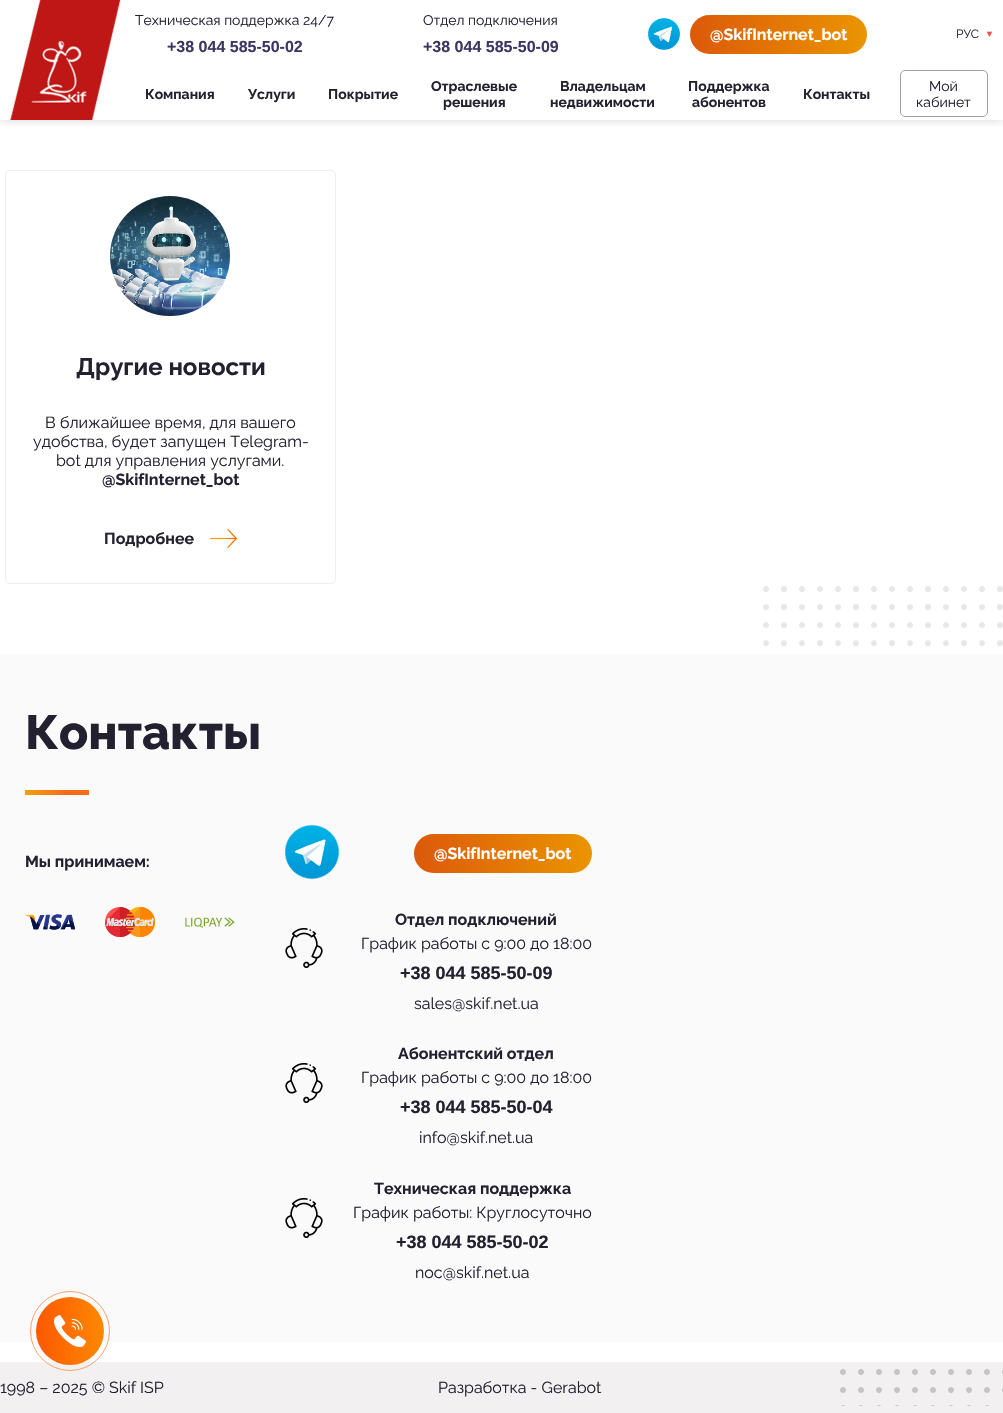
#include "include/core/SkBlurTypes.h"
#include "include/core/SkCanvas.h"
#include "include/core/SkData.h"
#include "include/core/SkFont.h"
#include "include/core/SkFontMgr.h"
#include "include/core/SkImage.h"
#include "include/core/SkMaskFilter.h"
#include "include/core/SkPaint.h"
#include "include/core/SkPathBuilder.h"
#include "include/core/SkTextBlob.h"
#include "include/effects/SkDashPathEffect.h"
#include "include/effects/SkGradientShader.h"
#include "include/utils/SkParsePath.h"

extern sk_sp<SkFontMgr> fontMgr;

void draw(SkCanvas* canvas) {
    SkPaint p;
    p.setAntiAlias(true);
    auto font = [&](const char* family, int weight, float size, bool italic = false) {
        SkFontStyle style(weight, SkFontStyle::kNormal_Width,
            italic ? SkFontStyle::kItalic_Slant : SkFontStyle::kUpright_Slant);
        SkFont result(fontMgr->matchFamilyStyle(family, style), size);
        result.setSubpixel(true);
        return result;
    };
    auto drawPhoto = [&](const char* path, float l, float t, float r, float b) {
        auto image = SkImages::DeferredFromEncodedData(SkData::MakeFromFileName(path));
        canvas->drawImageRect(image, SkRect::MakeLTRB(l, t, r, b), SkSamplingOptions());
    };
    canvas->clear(0xFFFFFFFF);
    canvas->save();
    canvas->clipRect(SkRect::MakeLTRB(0, 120, 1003, 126));
    p.setColor(0x29000000);
    p.setMaskFilter(SkMaskFilter::MakeBlur(kNormal_SkBlurStyle, 5));
    canvas->drawRect(SkRect::MakeLTRB(0, 0, 1003, 120), p);
    p.setMaskFilter(nullptr);
    canvas->restore();
    drawPhoto("media/1.png", 9, 0, 121, 120);
    auto font1 = font("Raleway", 400, 14);
    p.setColor(0xFF23202F);
    canvas->drawString("Техническая поддержка 24/7", 135, 25, font1, p);
    auto font2 = font("Liberation Sans", 700, 16);
    p.setColor(0xFF3C3664);
    canvas->drawString("+38 044 585-50-02", 167, 52, font2, p);
    p.setColor(0xFF23202F);
    canvas->drawString("Отдел подключения", 423, 25, font1, p);
    p.setColor(0xFF3C3664);
    canvas->drawString("+38 044 585-50-09", 423, 52, font2, p);
    drawPhoto("media/2.png", 648, 18, 680, 50);
    {
        const SkColor colors[] = {0xFFEA9500, 0xFFDC590B};
        const float stops[] = {0, 1};
        const SkPoint ends[] = {{867, 35}, {690, 34}};
        p.setShader(SkGradientShader::MakeLinear(ends, colors, stops, 2, SkTileMode::kClamp));
        p.setAlpha(255);
    }
    canvas->drawRoundRect(SkRect::MakeLTRB(690, 15, 867, 54), 19.5f, 19.5f, p);
    auto font3 = font("Raleway", 700, 16);
    p.setShader(nullptr);
    p.setColor(0xFFFFFFFF);
    canvas->drawString("@SkifInternet_bot", 710, 40, font3, p);
    auto font4 = font("Raleway", 400, 12);
    p.setColor(0xFF23202F);
    canvas->drawString("РУС", 956, 38, font4, p);
    auto font5 = font("Liberation Sans", 400, 9);
    p.setColor(0xFFF25042);
    canvas->drawString("▼", 985, 37, font5, p);
    auto font6 = font("Raleway", 700, 14);
    p.setColor(0xFF23202F);
    {
        const struct { const char* s; float x, y; } items[] = {
            {"Компания", 145, 99},
            {"Услуги", 248, 99},
            {"Покрытие", 328, 99},
            {"Отраслевые", 431, 91},
            {"решения", 443, 107},
            {"Владельцам", 560, 91},
            {"недвижимости", 550, 107},
            {"Поддержка", 688, 91},
            {"абонентов", 692, 107},
            {"Контакты", 803, 99},
        };
        for (auto [s, x, y] : items) {
            canvas->drawString(s, x, y, font6, p);
        }
    }
    p.setStyle(SkPaint::kStroke_Style);
    p.setStrokeWidth(1);
    p.setColor(0xFFA0A0A0);
    canvas->drawRoundRect(SkRect::MakeLTRB(900.5f, 70.5f, 987.5f, 116.5f), 4.5f, 4.5f, p);
    p.setStyle(SkPaint::kFill_Style);
    p.setColor(0xFF23202F);
    canvas->drawString("Мой", 929, 91, font1, p);
    canvas->drawString("кабинет", 916, 107, font1, p);
    drawPhoto("media/3.png", 763, 586, 1003, 647);
    p.setStyle(SkPaint::kStroke_Style);
    p.setColor(0xFFEEEEEE);
    canvas->drawRoundRect(SkRect::MakeLTRB(5.5f, 170.5f, 335.5f, 583.5f), 4.5f, 4.5f, p);
    drawPhoto("media/4.png", 110, 196, 230, 316);
    auto font7 = font("Raleway", 700, 24);
    p.setStyle(SkPaint::kFill_Style);
    p.setColor(0xFF23202F);
    canvas->drawString("Другие новости", 76, 375, font7, p);
    auto font8 = font("Raleway", 400, 16);
    {
        const struct { const char* s; float x, y; } items[] = {
            {"В ближайшее время, для вашего", 45, 428},
            {"удобства, будет запущен Telegram-", 33, 447},
            {"bot для управления услугами.", 56, 466},
        };
        for (auto [s, x, y] : items) {
            canvas->drawString(s, x, y, font8, p);
        }
    }
    canvas->drawString("@SkifInternet_bot", 102, 485, font3, p);
    canvas->drawString("Подробнее", 104, 544, font3, p);
    drawPhoto("media/5.png", 210, 529, 237, 548);
    p.setColor(0xFFFAFAFA);
    canvas->drawRect(SkRect::MakeLTRB(0, 654, 1003, 1342), p);
    auto font9 = font("Raleway", 800, 48);
    p.setColor(0xFF23202F);
    canvas->drawString("Контакты", 25, 749, font9, p);
    {
        const SkColor colors[] = {0xFFF2A010, 0xFFF76B18};
        const float stops[] = {0, 0.64f};
        const SkPoint ends[] = {{25, 793}, {89, 793}};
        p.setShader(SkGradientShader::MakeLinear(ends, colors, stops, 2, SkTileMode::kClamp));
        p.setAlpha(255);
    }
    canvas->drawRect(SkRect::MakeLTRB(25, 790, 89, 795), p);
    p.setShader(nullptr);
    p.setColor(0xFF23202F);
    canvas->drawString("Мы принимаем:", 25, 867, font3, p);
    drawPhoto("media/6.png", 25, 914, 75, 930);
    drawPhoto("media/7.png", 105, 907, 155, 937);
    drawPhoto("media/8.png", 185, 917, 235, 928);
    drawPhoto("media/9.png", 285, 825, 339, 879);
    {
        const SkColor colors[] = {0xFFEA9500, 0xFFDC590B};
        const float stops[] = {0, 1};
        const SkPoint ends[] = {{592, 854}, {414, 854}};
        p.setShader(SkGradientShader::MakeLinear(ends, colors, stops, 2, SkTileMode::kClamp));
        p.setAlpha(255);
    }
    canvas->drawRoundRect(SkRect::MakeLTRB(414, 834, 592, 873), 19.5f, 19.5f, p);
    p.setShader(nullptr);
    p.setColor(0xFFFFFFFF);
    canvas->drawString("@SkifInternet_bot", 434, 859, font3, p);
    drawPhoto("media/10.png", 285, 928, 323, 968);
    p.setColor(0xFF23202F);
    canvas->drawString("Отдел подключений", 395, 925, font3, p);
    canvas->drawString("График работы с 9:00 до 18:00", 361, 949, font8, p);
    auto font10 = font("Liberation Sans", 700, 18);
    canvas->drawString("+38 044 585-50-09", 400, 979, font10, p);
    canvas->drawString("sales@skif.net.ua", 414, 1009, font8, p);
    drawPhoto("media/10.png", 285, 1063, 323, 1103);
    canvas->drawString("Абонентский отдел", 398, 1059, font3, p);
    canvas->drawString("График работы с 9:00 до 18:00", 361, 1083, font8, p);
    canvas->drawString("+38 044 585-50-04", 400, 1113, font10, p);
    canvas->drawString("info@skif.net.ua", 419, 1143, font8, p);
    drawPhoto("media/10.png", 285, 1198, 323, 1238);
    canvas->drawString("Техническая поддержка", 374, 1194, font3, p);
    canvas->drawString("График работы: Круглосуточно", 353, 1218, font8, p);
    canvas->drawString("+38 044 585-50-02", 396, 1248, font10, p);
    canvas->drawString("noc@skif.net.ua", 415, 1278, font8, p);
    p.setColor(0xFFF2F0F0);
    canvas->drawRect(SkRect::MakeLTRB(0, 1362, 1003, 1413), p);
    p.setStyle(SkPaint::kStroke_Style);
    p.setColor(0xFFFF9F6F);
    canvas->drawCircle(70, 1331, 39.5f, p);
    p.setStyle(SkPaint::kFill_Style);
    {
        const SkColor colors[] = {0xFFFD5900, 0xFFFF8800};
        const float stops[] = {0, 1};
        const SkPoint ends[] = {{36, 1331}, {104, 1331}};
        p.setShader(SkGradientShader::MakeLinear(ends, colors, stops, 2, SkTileMode::kClamp));
        p.setAlpha(255);
    }
    canvas->drawCircle(70, 1331, 34, p);
    drawPhoto("media/11.png", 54, 1315, 86, 1347);
    drawPhoto("media/12.png", 840, 1369, 1003, 1406);
    p.setShader(nullptr);
    p.setColor(0xFF23202F);
    canvas->drawString("1998 – 2025 © Skif ISP", 0, 1393, font8, p);
    canvas->drawString("Разработка - Gerabot", 438, 1393, font8, p);
}
